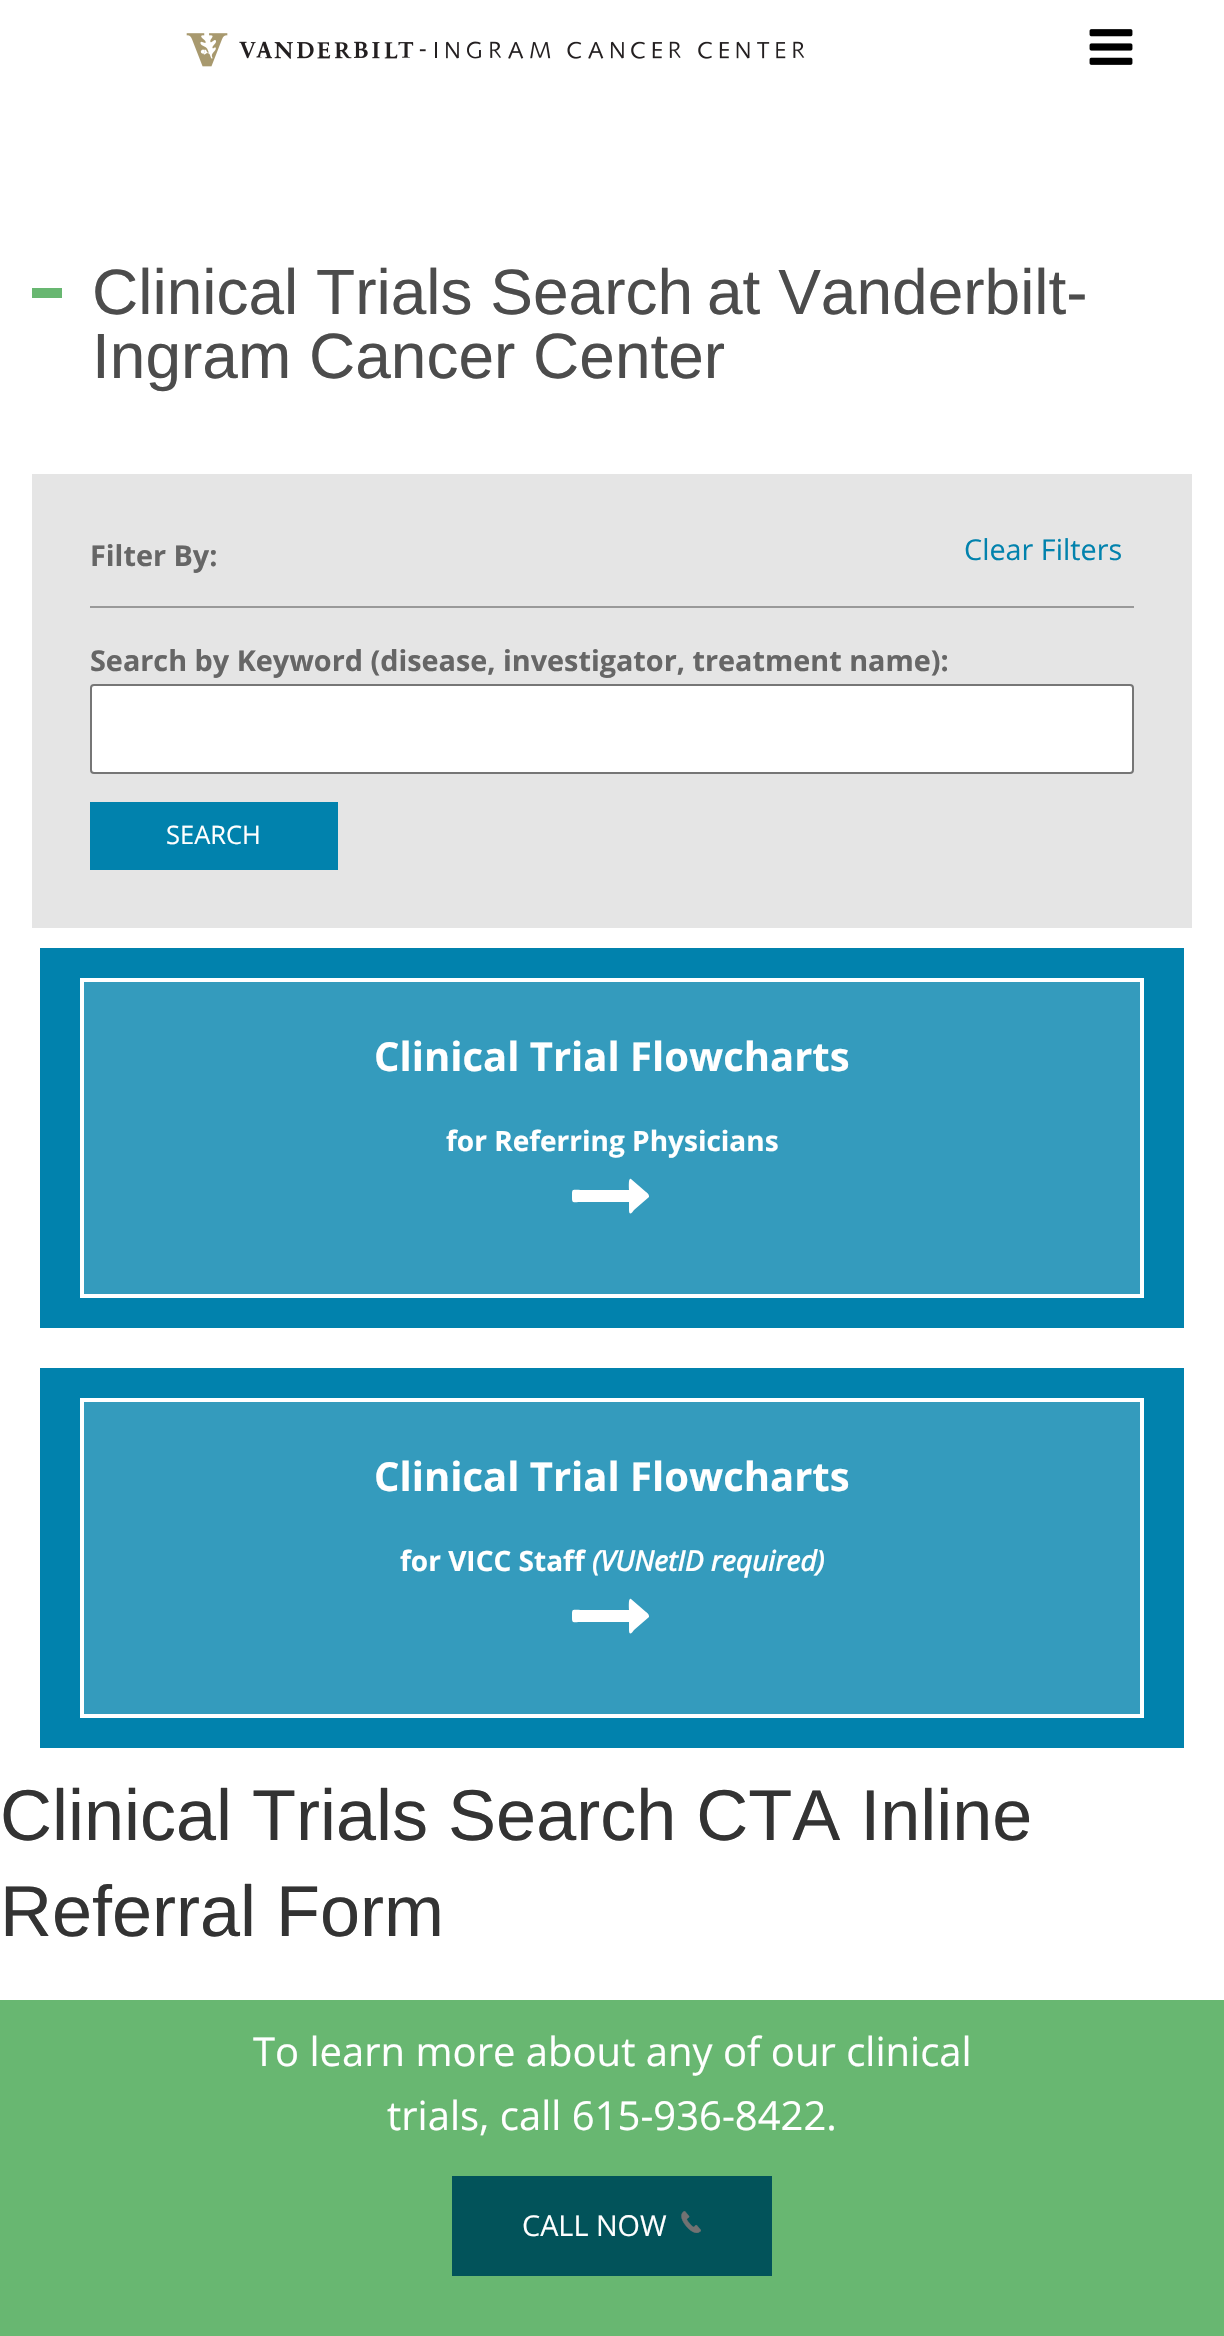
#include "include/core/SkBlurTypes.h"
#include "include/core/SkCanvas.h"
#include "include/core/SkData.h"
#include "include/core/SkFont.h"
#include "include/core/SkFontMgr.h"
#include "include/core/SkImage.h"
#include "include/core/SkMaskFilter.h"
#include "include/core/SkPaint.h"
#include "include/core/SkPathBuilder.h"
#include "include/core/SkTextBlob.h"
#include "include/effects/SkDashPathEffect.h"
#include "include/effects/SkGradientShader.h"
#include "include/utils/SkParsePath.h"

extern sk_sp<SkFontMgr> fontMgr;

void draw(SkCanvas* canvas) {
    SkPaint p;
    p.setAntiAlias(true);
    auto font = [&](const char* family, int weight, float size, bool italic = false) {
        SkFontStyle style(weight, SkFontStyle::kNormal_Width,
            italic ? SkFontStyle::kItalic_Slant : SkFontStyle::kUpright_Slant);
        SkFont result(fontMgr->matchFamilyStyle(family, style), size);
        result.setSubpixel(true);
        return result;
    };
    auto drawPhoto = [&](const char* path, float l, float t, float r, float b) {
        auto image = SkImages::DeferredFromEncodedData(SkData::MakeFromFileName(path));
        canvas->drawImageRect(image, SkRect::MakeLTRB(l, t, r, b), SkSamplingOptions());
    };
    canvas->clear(0xFFFFFFFF);
    drawPhoto("media/1.png", 186, 33, 805, 67);
    drawPhoto("media/2.png", 1089, 29, 1133, 65);
    p.setColor(0xFF68B771);
    canvas->drawRect(SkRect::MakeLTRB(32, 288, 62, 298), p);
    auto font1 = font("Liberation Sans", 400, 64);
    p.setColor(0xFF4C4C4C);
    {
        const struct { const char* s; float x, y; } items[] = {
            {"Clinical Trials Search", 92, 314},
            {"at Vanderbilt-", 707, 314},
            {"Ingram Cancer Center", 92, 378},
        };
        for (auto [s, x, y] : items) {
            canvas->drawString(s, x, y, font1, p);
        }
    }
    p.setColor(0xFFE5E5E5);
    canvas->drawRect(SkRect::MakeLTRB(32, 474, 1192, 928), p);
    auto font2 = font("Open Sans", 700, 28.8f);
    p.setColor(0xFF666666);
    canvas->drawString("Filter By:", 90, 566, font2, p);
    auto font3 = font("Open Sans", 400, 28.8f);
    p.setColor(0xFF0182AD);
    canvas->drawString("Clear Filters", 964, 560, font3, p);
    p.setColor(0xFF999999);
    canvas->drawRect(SkRect::MakeLTRB(90, 606, 1134, 608), p);
    p.setColor(0xFF666666);
    canvas->drawString("Search by Keyword (disease, investigator, treatment name):", 90, 671, font2, p);
    p.setColor(0xFFFFFFFF);
    canvas->drawRoundRect(SkRect::MakeLTRB(91, 685, 1133, 773), 3, 3, p);
    p.setStyle(SkPaint::kStroke_Style);
    p.setStrokeWidth(2);
    p.setColor(0xFF767676);
    canvas->drawRoundRect(SkRect::MakeLTRB(91, 685, 1133, 773), 3, 3, p);
    p.setStyle(SkPaint::kFill_Style);
    p.setColor(0xFF0182AD);
    canvas->drawRect(SkRect::MakeLTRB(90, 802, 338, 870), p);
    auto font4 = font("Open Sans", 400, 25.5f);
    p.setColor(0xFFFFFFFF);
    canvas->drawString("SEARCH", 166, 844, font4, p);
    p.setColor(0xFF0182AD);
    canvas->drawRect(SkRect::MakeLTRB(40, 948, 1184, 1328), p);
    p.setColor(0xFF349BBD);
    canvas->drawRect(SkRect::MakeLTRB(82, 980, 1142, 1296), p);
    p.setStyle(SkPaint::kStroke_Style);
    p.setStrokeWidth(4);
    p.setColor(0xFFFFFFFF);
    canvas->drawRect(SkRect::MakeLTRB(82, 980, 1142, 1296), p);
    auto font5 = font("Open Sans", 700, 40);
    p.setStyle(SkPaint::kFill_Style);
    canvas->drawString("Clinical Trial Flowcharts", 374, 1071, font5, p);
    auto font6 = font("Open Sans", 700, 28);
    canvas->drawString("for Referring Physicians", 446, 1151, font6, p);
    canvas->drawPath(SkPathBuilder().moveTo(649, 1196).lineTo(649, 1197).lineTo(634, 1210).cubicTo(632, 1213, 629, 1216, 629, 1210).lineTo(629, 1202).lineTo(583, 1202).cubicTo(572, 1202, 572, 1204, 572, 1196).cubicTo(572, 1188, 572, 1190, 583, 1190).lineTo(629, 1190).cubicTo(629, 1189, 628, 1177, 631, 1179).lineTo(646, 1192).cubicTo(646, 1192, 649, 1194, 649, 1196).close().detach(), p);
    p.setColor(0xFF0182AD);
    canvas->drawRect(SkRect::MakeLTRB(40, 1368, 1184, 1748), p);
    p.setColor(0xFF349BBD);
    canvas->drawRect(SkRect::MakeLTRB(82, 1400, 1142, 1716), p);
    p.setStyle(SkPaint::kStroke_Style);
    p.setColor(0xFFFFFFFF);
    canvas->drawRect(SkRect::MakeLTRB(82, 1400, 1142, 1716), p);
    p.setStyle(SkPaint::kFill_Style);
    canvas->drawString("Clinical Trial Flowcharts", 374, 1491, font5, p);
    canvas->drawString("for VICC Staff", 400, 1571, font6, p);
    auto font7 = font("Open Sans", 700, 28, true);
    canvas->drawString("(VUNetID required)", 592, 1571, font7, p);
    canvas->drawPath(SkPathBuilder().moveTo(649, 1616).lineTo(649, 1617).lineTo(634, 1630).cubicTo(632, 1633, 629, 1636, 629, 1630).lineTo(629, 1622).lineTo(583, 1622).cubicTo(572, 1622, 572, 1624, 572, 1616).cubicTo(572, 1608, 572, 1610, 583, 1610).lineTo(629, 1610).cubicTo(629, 1609, 628, 1597, 631, 1599).lineTo(646, 1612).cubicTo(646, 1612, 649, 1614, 649, 1616).close().detach(), p);
    auto font8 = font("Liberation Sans", 400, 72);
    p.setColor(0xFF333333);
    canvas->drawString("Clinical Trials Search CTA Inline", 0, 1840, font8, p);
    canvas->drawString("Referral Form", 0, 1936, font8, p);
    p.setColor(0xFF68B771);
    canvas->drawRect(SkRect::MakeLTRB(0, 2000, 1224, 2336), p);
    auto font9 = font("Open Sans", 400, 40);
    p.setColor(0xFFFFFFFF);
    canvas->drawString("To learn more about any of our clinical", 253, 2066, font9, p);
    canvas->drawString("trials, call 615-936-8422.", 387, 2130, font9, p);
    p.setColor(0xFF02535A);
    canvas->drawRect(SkRect::MakeLTRB(452, 2176, 772, 2276), p);
    p.setColor(0xFFFFFFFF);
    canvas->drawString("CALL NOW", 522, 2236, font3, p);
    drawPhoto("media/3.png", 681, 2211, 701, 2233);
}
